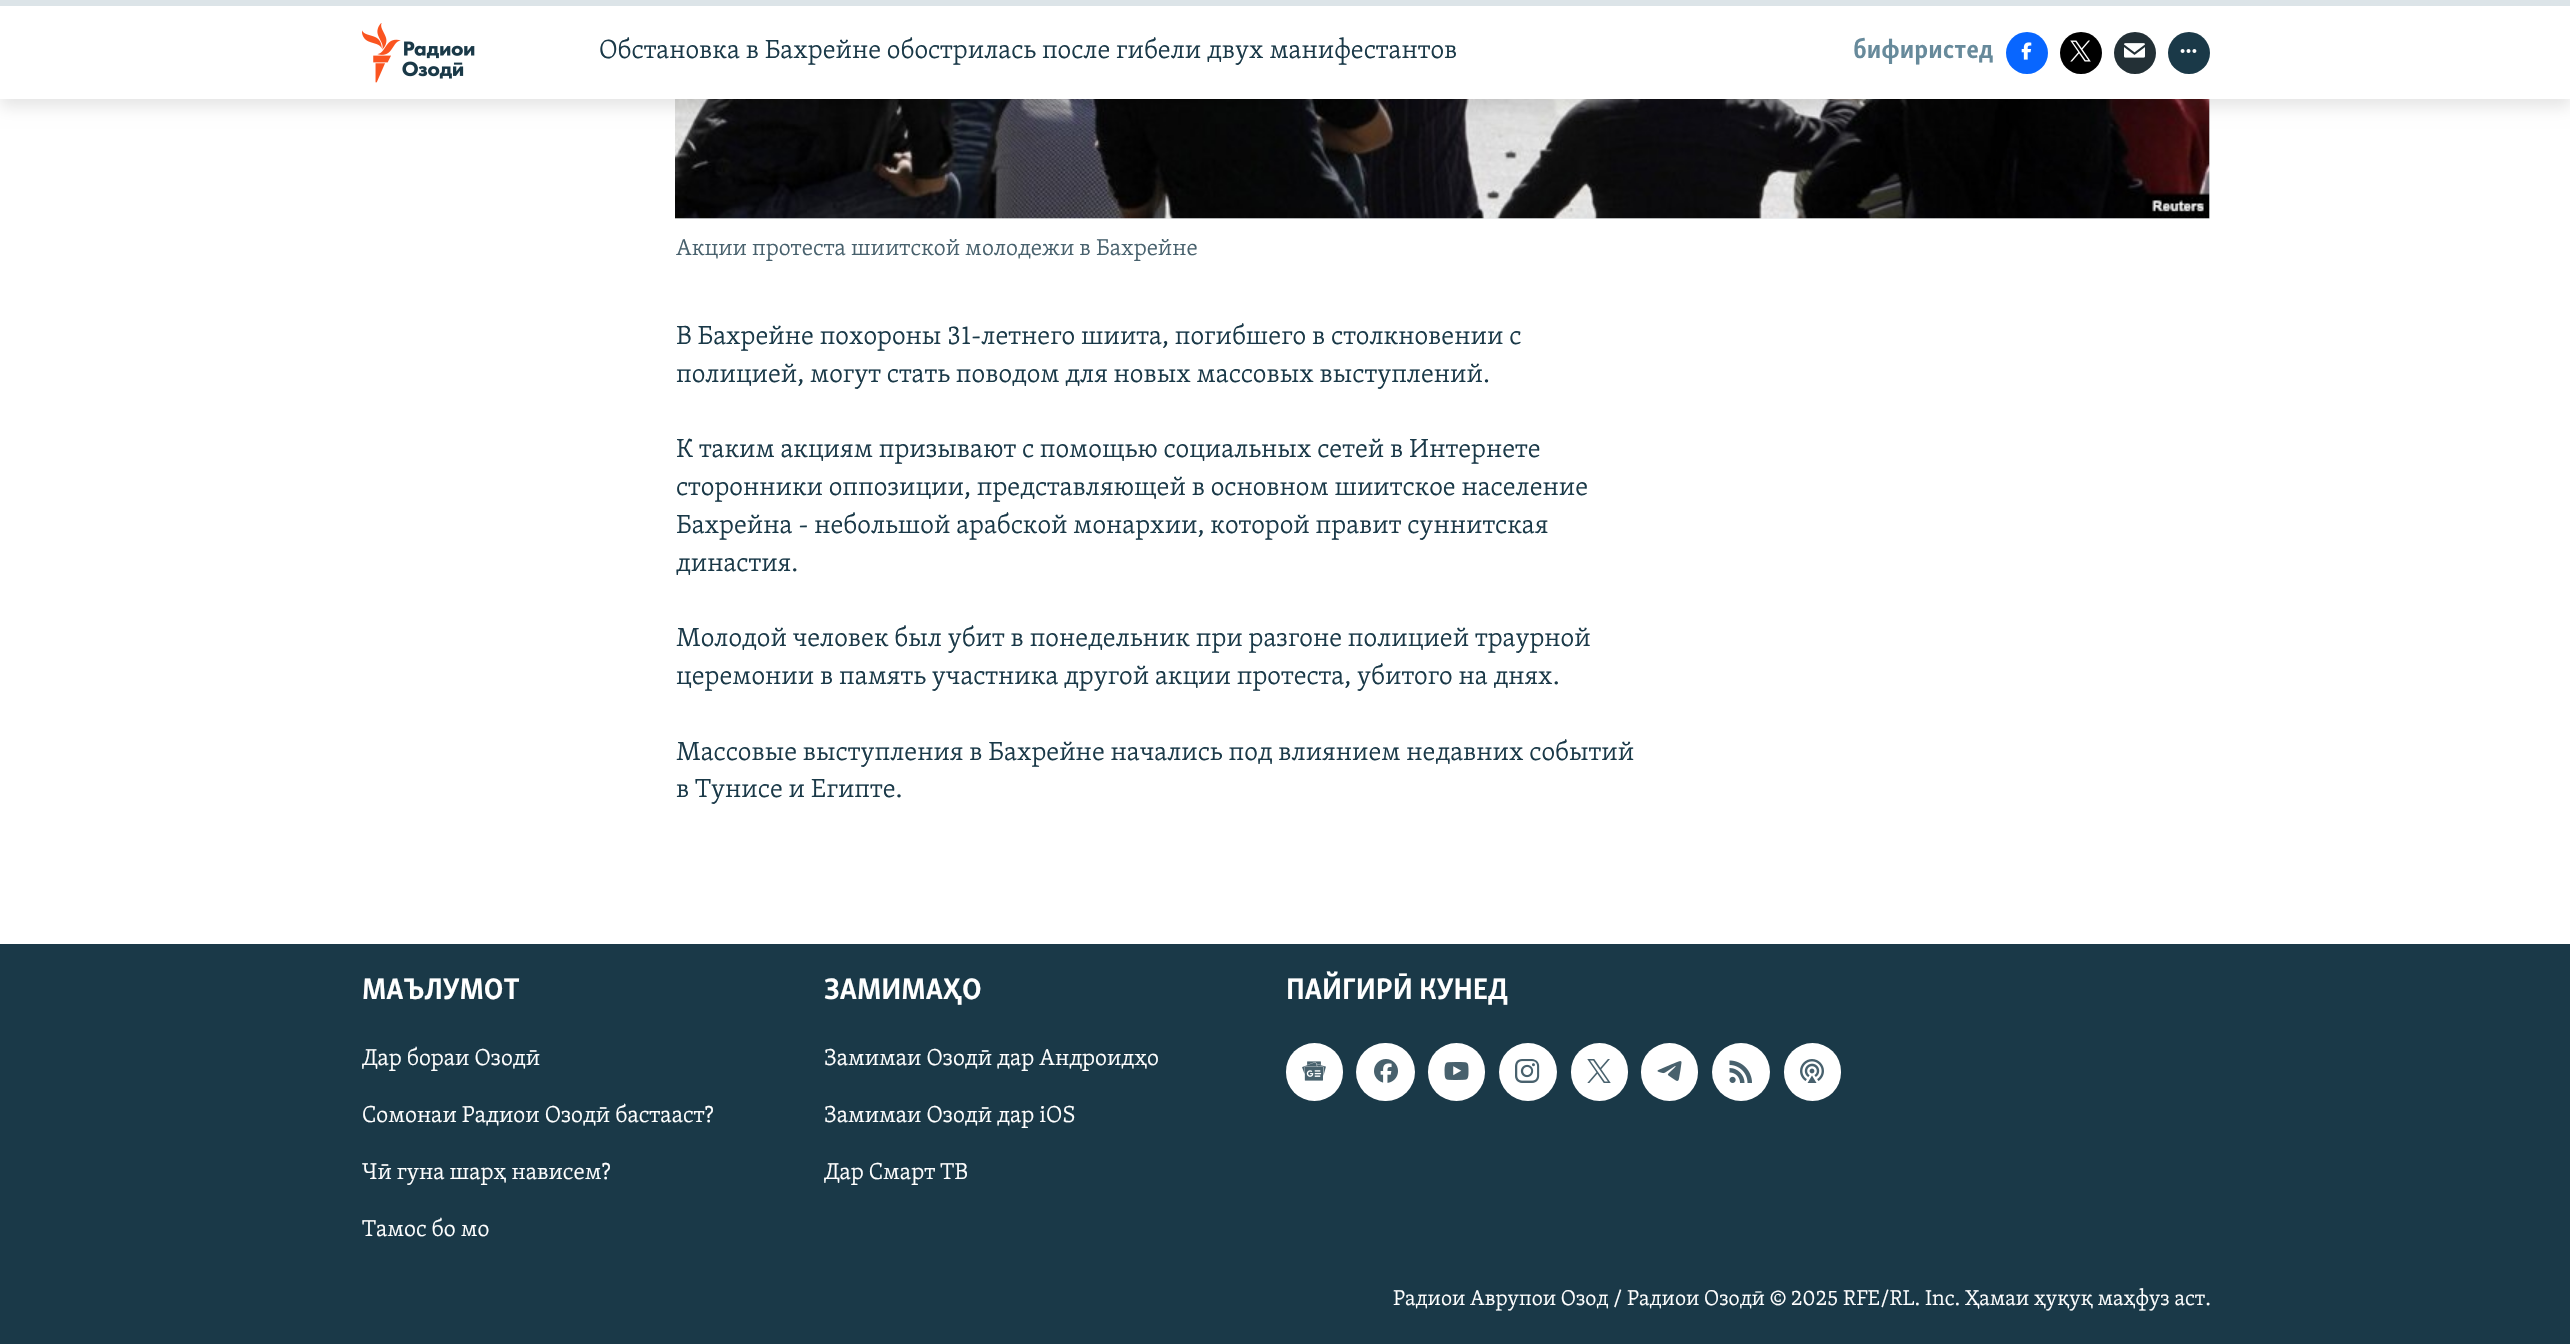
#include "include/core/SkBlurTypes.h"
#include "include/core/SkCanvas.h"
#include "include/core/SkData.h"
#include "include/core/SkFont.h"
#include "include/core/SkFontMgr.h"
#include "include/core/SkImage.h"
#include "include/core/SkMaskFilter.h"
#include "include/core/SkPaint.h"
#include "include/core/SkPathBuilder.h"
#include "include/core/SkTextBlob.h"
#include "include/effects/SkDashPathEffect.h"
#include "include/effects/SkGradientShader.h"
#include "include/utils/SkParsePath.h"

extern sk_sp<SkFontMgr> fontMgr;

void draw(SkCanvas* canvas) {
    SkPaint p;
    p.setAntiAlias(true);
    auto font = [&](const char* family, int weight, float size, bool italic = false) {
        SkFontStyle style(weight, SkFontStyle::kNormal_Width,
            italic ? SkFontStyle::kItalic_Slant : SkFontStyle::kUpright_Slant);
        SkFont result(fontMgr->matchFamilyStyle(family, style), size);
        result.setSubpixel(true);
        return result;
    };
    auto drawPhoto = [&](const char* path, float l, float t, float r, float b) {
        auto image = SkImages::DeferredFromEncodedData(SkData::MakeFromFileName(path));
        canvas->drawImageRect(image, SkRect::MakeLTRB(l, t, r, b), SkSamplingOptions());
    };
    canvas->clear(0xFFFFFFFF);
    p.setColor(0xFFEDEFF0);
    canvas->drawRect(SkRect::MakeLTRB(675, 99, 2210, 219), p);
    drawPhoto("media/6.png", 675, 99, 2210, 219);
    p.setColor(0x1A000000);
    p.setMaskFilter(SkMaskFilter::MakeBlur(kNormal_SkBlurStyle, 7.5f));
    canvas->drawRect(SkRect::MakeLTRB(0, 8, 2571, 107), p);
    p.setMaskFilter(nullptr);
    p.setColor(0xFFFFFFFF);
    canvas->drawRect(SkRect::MakeLTRB(0, 6, 2570, 99), p);
    p.setColor(0xFFDCE4E8);
    canvas->drawRect(SkRect::MakeLTRB(0, 0, 2570, 6), p);
    drawPhoto("media/1.png", 362, 23, 475, 83);
    auto font1 = font("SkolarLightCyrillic", 300, 27);
    p.setColor(0xFF1A3948);
    canvas->drawString("Обстановка в Бахрейне обострилась после гибели двух манифестантов", 599, 58, font1, p);
    auto font2 = font("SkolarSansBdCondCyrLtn", 700, 27);
    p.setColor(0xFF678A9B);
    canvas->drawString("бифиристед", 1853, 58, font2, p);
    p.setColor(0xFF0866FF);
    canvas->drawCircle(2027, 53, 21, p);
    drawPhoto("media/2.png", 2021, 42, 2032, 60);
    p.setColor(0xFF000000);
    canvas->drawCircle(2081, 53, 21, p);
    drawPhoto("media/3.png", 2070, 40, 2091, 62);
    p.setColor(0xFF233036);
    canvas->drawCircle(2135, 53, 21, p);
    drawPhoto("media/4.png", 2124, 43, 2145, 58);
    p.setColor(0xFF1A3948);
    canvas->drawCircle(2189, 53, 21, p);
    drawPhoto("media/5.png", 2180, 49, 2197, 53);
    auto font3 = font("SkolarLightCyrillic", 300, 23.6f);
    p.setColor(0xFF48616D);
    canvas->drawString("Акции протеста шиитской молодежи в Бахрейне", 676, 255, font3, p);
    p.setColor(0xFF1A3948);
    {
        const struct { const char* s; float x, y; } items[] = {
            {"В Бахрейне похороны 31-летнего шиита, погибшего в столкновении с", 676, 344},
            {"полицией, могут стать поводом для новых массовых выступлений.", 676, 382},
            {"К таким акциям призывают с помощью социальных сетей в Интернете", 676, 457},
            {"сторонники оппозиции, представляющей в основном шиитское население", 676, 495},
            {"Бахрейна - небольшой арабской монархии, которой правит суннитская", 676, 533},
            {"династия.", 676, 571},
            {"Молодой человек был убит в понедельник при разгоне полицией траурной", 676, 646},
            {"церемонии в память участника другой акции протеста, убитого на днях.", 676, 684},
            {"Массовые выступления в Бахрейне начались под влиянием недавних событий", 676, 760},
            {"в Тунисе и Египте.", 676, 797},
        };
        for (auto [s, x, y] : items) {
            canvas->drawString(s, x, y, font1, p);
        }
    }
    canvas->drawRect(SkRect::MakeLTRB(0, 944, 2570, 1344), p);
    auto font4 = font("SkolarSansBdCondCyrLtn", 700, 30.5f);
    p.setColor(0xFFFFFFFF);
    canvas->drawString("МАЪЛУМОТ", 362, 999, font4, p);
    {
        const struct { const char* s; float x, y; } items[] = {
            {"Дар бораи Озодӣ", 362, 1065},
            {"Сомонаи Радиои Озодӣ бастааст?", 362, 1122},
            {"Чӣ гуна шарҳ нависем?", 362, 1179},
            {"Тамос бо мо", 362, 1236},
        };
        for (auto [s, x, y] : items) {
            canvas->drawString(s, x, y, font3, p);
        }
    }
    canvas->drawString("ЗАМИМАҲО", 824, 999, font4, p);
    {
        const struct { const char* s; float x, y; } items[] = {
            {"Замимаи Озодӣ дар Андроидҳо", 824, 1065},
            {"Замимаи Озодӣ дар iOS", 824, 1122},
            {"Дар Смарт ТВ", 824, 1179},
        };
        for (auto [s, x, y] : items) {
            canvas->drawString(s, x, y, font3, p);
        }
    }
    canvas->drawString("ПАЙГИРӢ КУНЕД", 1286, 999, font4, p);
    canvas->drawRoundRect(SkRect::MakeLTRB(1286, 1043, 1343, 1101), 28.5f, 28.5f, p);
    drawPhoto("media/7.png", 1302, 1061, 1326, 1081);
    canvas->drawRoundRect(SkRect::MakeLTRB(1356, 1043, 1415, 1101), 29, 29, p);
    drawPhoto("media/8.png", 1374, 1059, 1398, 1083);
    canvas->drawRoundRect(SkRect::MakeLTRB(1428, 1043, 1485, 1101), 28.5f, 28.5f, p);
    drawPhoto("media/9.png", 1444, 1062, 1469, 1080);
    canvas->drawCircle(1528, 1072, 29, p);
    drawPhoto("media/10.png", 1515, 1059, 1540, 1083);
    canvas->drawRoundRect(SkRect::MakeLTRB(1571, 1043, 1628, 1101), 28.5f, 28.5f, p);
    drawPhoto("media/11.png", 1587, 1059, 1611, 1083);
    canvas->drawRoundRect(SkRect::MakeLTRB(1641, 1043, 1698, 1101), 28.5f, 28.5f, p);
    drawPhoto("media/12.png", 1657, 1061, 1682, 1081);
    canvas->drawCircle(1741, 1072, 29, p);
    drawPhoto("media/13.png", 1729, 1060, 1752, 1083);
    canvas->drawRoundRect(SkRect::MakeLTRB(1784, 1043, 1841, 1101), 28.5f, 28.5f, p);
    drawPhoto("media/14.png", 1800, 1059, 1824, 1083);
    auto font5 = font("SkolarLightCyrillic", 300, 21.95f);
    canvas->drawString("Радиои Аврупои Озод / Радиои Озодӣ © 2025 RFE/RL. Inc. Ҳамаи ҳуқуқ маҳфуз аст.", 1393, 1305, font5, p);
}
